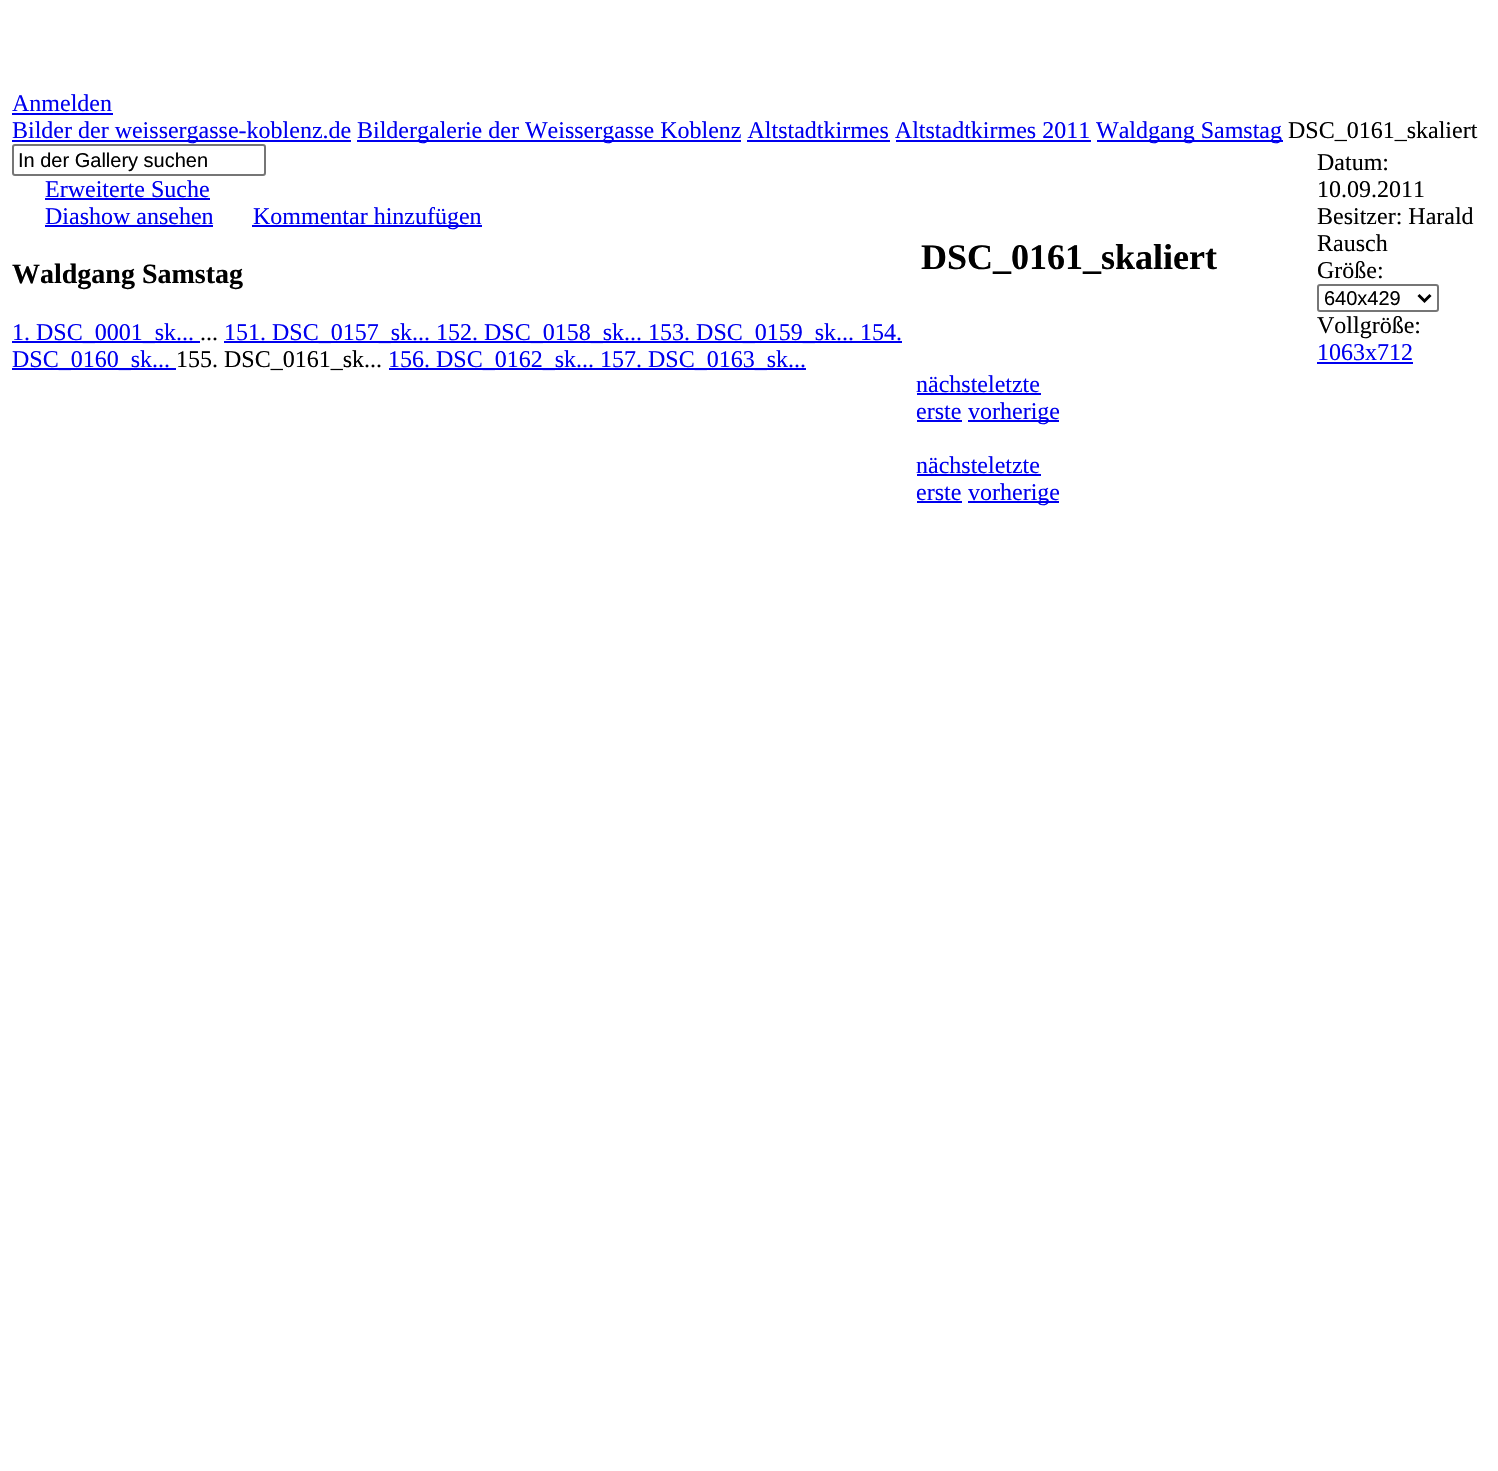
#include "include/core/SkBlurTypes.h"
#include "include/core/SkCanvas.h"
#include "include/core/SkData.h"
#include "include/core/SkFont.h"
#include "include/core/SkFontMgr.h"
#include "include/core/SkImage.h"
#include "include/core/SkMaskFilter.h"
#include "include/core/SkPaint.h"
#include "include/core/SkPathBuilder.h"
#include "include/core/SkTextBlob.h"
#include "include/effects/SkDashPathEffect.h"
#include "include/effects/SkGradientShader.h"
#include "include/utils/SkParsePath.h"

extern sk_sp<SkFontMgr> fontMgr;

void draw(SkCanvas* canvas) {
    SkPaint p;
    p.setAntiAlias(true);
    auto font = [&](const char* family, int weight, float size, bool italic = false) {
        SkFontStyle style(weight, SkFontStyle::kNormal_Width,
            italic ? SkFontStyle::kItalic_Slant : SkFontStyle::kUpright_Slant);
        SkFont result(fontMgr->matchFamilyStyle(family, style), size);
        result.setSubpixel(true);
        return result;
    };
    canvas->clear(0xFFFFFFFF);
    auto font1 = font("Liberation Serif", 400, 24);
    p.setColor(0xFF0000EE);
    canvas->drawString("Anmelden", 12, 111, font1, p);
    canvas->drawRect(SkRect::MakeLTRB(12, 113, 113, 115), p);
    canvas->drawRect(SkRect::MakeLTRB(12, 140, 351, 142), p);
    canvas->drawString("Bilder der weissergasse-koblenz.de", 12, 138, font1, p);
    canvas->drawRect(SkRect::MakeLTRB(357, 140, 741, 142), p);
    canvas->drawString("Bildergalerie der Weissergasse Koblenz Altstadtkirmes Altstadtkirmes 2011", 357, 138, font1, p);
    canvas->drawRect(SkRect::MakeLTRB(1097, 140, 1283, 142), p);
    canvas->drawString("Waldgang Samstag", 1096, 138, font1, p);
    p.setColor(0xFF000000);
    canvas->drawString("DSC_0161_skaliert", 1288, 138, font1, p);
    p.setColor(0xFF0000EE);
    canvas->drawRect(SkRect::MakeLTRB(747, 140, 890, 142), p);
    canvas->drawRect(SkRect::MakeLTRB(896, 140, 1091, 142), p);
    p.setStyle(SkPaint::kStroke_Style);
    p.setStrokeWidth(2);
    p.setColor(0xFF767676);
    canvas->drawRoundRect(SkRect::MakeLTRB(13, 145, 265, 175), 2, 2, p);
    auto font2 = font("Liberation Sans", 400, 20);
    p.setStyle(SkPaint::kFill_Style);
    p.setColor(0xFF000000);
    canvas->drawString("In der Gallery suchen", 18, 167, font2, p);
    p.setColor(0xFF0000EE);
    canvas->drawString("Erweiterte Suche", 45, 197, font1, p);
    canvas->drawRect(SkRect::MakeLTRB(45, 198, 210, 200), p);
    canvas->drawString("Diashow ansehen", 45, 224, font1, p);
    canvas->drawRect(SkRect::MakeLTRB(45, 225, 213, 227), p);
    canvas->drawRect(SkRect::MakeLTRB(252, 225, 482, 227), p);
    canvas->drawString("Kommentar hinzufügen", 253, 224, font1, p);
    auto font3 = font("Liberation Serif", 700, 28);
    p.setColor(0xFF000000);
    canvas->drawString("Waldgang Samstag", 12, 283, font3, p);
    p.setColor(0xFF0000EE);
    canvas->drawRect(SkRect::MakeLTRB(12, 341, 200, 343), p);
    canvas->drawString("1. DSC_0001_sk...", 12, 340, font1, p);
    p.setColor(0xFF000000);
    canvas->drawString("...", 200, 340, font1, p);
    p.setColor(0xFF0000EE);
    canvas->drawRect(SkRect::MakeLTRB(224, 341, 902, 343), p);
    canvas->drawString("151. DSC_0157_sk... 152. DSC_0158_sk... 153. DSC_0159_sk... 154.", 224, 340, font1, p);
    canvas->drawRect(SkRect::MakeLTRB(12, 368, 176, 370), p);
    canvas->drawString("DSC_0160_sk...", 12, 367, font1, p);
    p.setColor(0xFF000000);
    canvas->drawString("155. DSC_0161_sk...", 176, 367, font1, p);
    p.setColor(0xFF0000EE);
    canvas->drawRect(SkRect::MakeLTRB(389, 368, 806, 370), p);
    canvas->drawString("156. DSC_0162_sk... 157. DSC_0163_sk...", 388, 367, font1, p);
    auto font4 = font("Liberation Serif", 700, 36);
    p.setColor(0xFF000000);
    canvas->drawString("DSC_0161_skaliert", 921, 269, font4, p);
    {
        const struct { const char* s; float x, y; } items[] = {
            {"Datum:", 1317, 170},
            {"10.09.2011", 1317, 197},
            {"Besitzer: Harald", 1317, 224},
            {"Rausch", 1317, 251},
            {"Größe:", 1317, 278},
        };
        for (auto [s, x, y] : items) {
            canvas->drawString(s, x, y, font1, p);
        }
    }
    p.setStyle(SkPaint::kStroke_Style);
    p.setColor(0xFF767676);
    canvas->drawRoundRect(SkRect::MakeLTRB(1318, 285, 1438, 311), 2, 2, p);
    p.setStrokeWidth(3);
    p.setColor(0xFF000000);
    canvas->drawPath(SkPathBuilder().moveTo(1418.5f, 295).lineTo(1424.5f, 301).lineTo(1430.5f, 295).detach(), p);
    p.setStyle(SkPaint::kFill_Style);
    canvas->drawString("640x429", 1324, 305, font2, p);
    canvas->drawString("Vollgröße:", 1317, 333, font1, p);
    p.setColor(0xFF0000EE);
    canvas->drawString("1063x712", 1317, 360, font1, p);
    canvas->drawRect(SkRect::MakeLTRB(1317, 362, 1413, 364), p);
    canvas->drawString("nächsteletzte", 916, 392, font1, p);
    canvas->drawRect(SkRect::MakeLTRB(917, 393, 1041, 395), p);
    canvas->drawString("erste", 916, 419, font1, p);
    canvas->drawRect(SkRect::MakeLTRB(917, 420, 962, 422), p);
    canvas->drawRect(SkRect::MakeLTRB(968, 420, 1059, 422), p);
    canvas->drawString("vorherige", 968, 419, font1, p);
    canvas->drawString("nächsteletzte", 916, 473, font1, p);
    canvas->drawRect(SkRect::MakeLTRB(917, 474, 1041, 476), p);
    canvas->drawString("erste", 916, 500, font1, p);
    canvas->drawRect(SkRect::MakeLTRB(917, 501, 962, 503), p);
    canvas->drawRect(SkRect::MakeLTRB(968, 501, 1059, 503), p);
    canvas->drawString("vorherige", 968, 500, font1, p);
}
